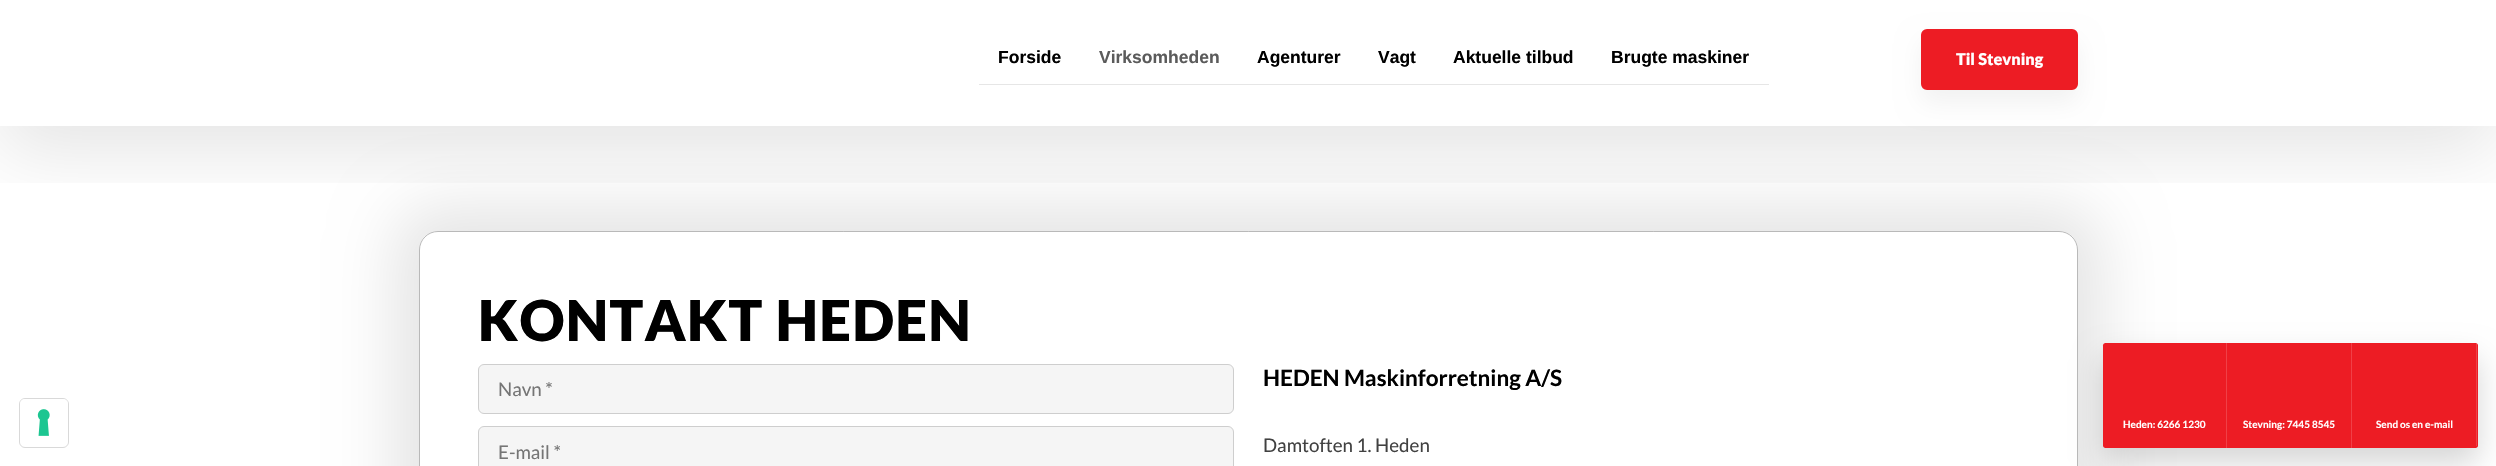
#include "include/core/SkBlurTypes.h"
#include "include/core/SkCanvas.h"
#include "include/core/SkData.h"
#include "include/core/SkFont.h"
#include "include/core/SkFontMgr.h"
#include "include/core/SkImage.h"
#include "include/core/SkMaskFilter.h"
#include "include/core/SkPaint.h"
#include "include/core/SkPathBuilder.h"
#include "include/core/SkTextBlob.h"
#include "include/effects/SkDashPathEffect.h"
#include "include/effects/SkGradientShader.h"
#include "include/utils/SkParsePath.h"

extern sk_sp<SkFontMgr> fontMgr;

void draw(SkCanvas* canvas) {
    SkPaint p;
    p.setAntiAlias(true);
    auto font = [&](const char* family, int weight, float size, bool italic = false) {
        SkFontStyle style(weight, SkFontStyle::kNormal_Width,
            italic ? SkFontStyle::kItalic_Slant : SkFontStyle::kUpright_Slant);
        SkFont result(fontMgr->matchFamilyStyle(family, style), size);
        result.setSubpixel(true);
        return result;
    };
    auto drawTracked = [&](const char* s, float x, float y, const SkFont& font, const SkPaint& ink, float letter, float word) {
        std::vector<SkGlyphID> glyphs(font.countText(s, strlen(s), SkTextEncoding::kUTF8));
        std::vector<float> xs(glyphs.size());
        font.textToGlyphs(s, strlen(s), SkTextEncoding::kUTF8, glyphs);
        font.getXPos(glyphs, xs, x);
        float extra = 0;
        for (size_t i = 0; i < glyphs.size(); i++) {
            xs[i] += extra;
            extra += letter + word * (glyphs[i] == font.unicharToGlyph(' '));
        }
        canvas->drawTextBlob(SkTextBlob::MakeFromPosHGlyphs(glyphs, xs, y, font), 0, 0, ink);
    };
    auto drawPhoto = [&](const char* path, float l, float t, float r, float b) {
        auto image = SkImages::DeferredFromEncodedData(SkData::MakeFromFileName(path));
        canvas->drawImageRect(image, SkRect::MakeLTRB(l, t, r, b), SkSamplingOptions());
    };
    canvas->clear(0xFFFFFFFF);
    p.setStyle(SkPaint::kStroke_Style);
    p.setStrokeWidth(1);
    p.setColor(0xFFD9D9D9);
    canvas->drawRoundRect(SkRect::MakeLTRB(19.5f, 398.5f, 68.5f, 447.5f), 5.5f, 5.5f, p);
    p.setStyle(SkPaint::kFill_Style);
    p.setColor(0xFFFFFFFF);
    canvas->drawRoundRect(SkRect::MakeLTRB(20, 399, 68, 446), 5, 5, p);
    drawPhoto("media/1.png", 37, 409, 50, 436);
    p.setColor(0x1A000000);
    p.setMaskFilter(SkMaskFilter::MakeBlur(kNormal_SkBlurStyle, 31));
    canvas->drawRoundRect(SkRect::MakeLTRB(394, 206, 2103, 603), 44, 44, p);
    p.setMaskFilter(nullptr);
    p.setColor(0xFFFFFFFF);
    canvas->drawRoundRect(SkRect::MakeLTRB(419, 231, 2078, 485), 19, 19, p);
    p.setStyle(SkPaint::kStroke_Style);
    p.setColor(0x80747474);
    canvas->drawRoundRect(SkRect::MakeLTRB(419.5f, 231.5f, 2077.5f, 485.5f), 18.5f, 18.5f, p);
    canvas->save();
    canvas->clipRect(SkRect::MakeLTRB(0, 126, 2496, 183));
    p.setStyle(SkPaint::kFill_Style);
    p.setColor(0x1A000000);
    p.setMaskFilter(SkMaskFilter::MakeBlur(kNormal_SkBlurStyle, 37.5f));
    canvas->drawRect(SkRect::MakeLTRB(0, 25, 2496, 151), p);
    p.setMaskFilter(nullptr);
    canvas->restore();
    p.setColor(0xFFE6E6E6);
    canvas->drawRect(SkRect::MakeLTRB(979, 84, 1769, 85), p);
    auto font1 = font("Liberation Sans", 700, 17.5f);
    p.setColor(0xFF000000);
    canvas->drawString("Forside", 998, 63, font1, p);
    p.setColor(0xFF5B5B5B);
    canvas->drawString("Virksomheden", 1099, 63, font1, p);
    p.setColor(0xFF000000);
    {
        const struct { const char* s; float x, y; } items[] = {
            {"Agenturer", 1257, 63},
            {"Vagt", 1378, 63},
            {"Aktuelle tilbud", 1453, 63},
            {"Brugte maskiner", 1611, 63},
        };
        for (auto [s, x, y] : items) {
            canvas->drawString(s, x, y, font1, p);
        }
    }
    p.setColor(0x0D000000);
    p.setMaskFilter(SkMaskFilter::MakeBlur(kNormal_SkBlurStyle, 12.5f));
    canvas->drawRoundRect(SkRect::MakeLTRB(1921, 41, 2078, 103), 6, 6, p);
    p.setMaskFilter(nullptr);
    p.setColor(0xFFED1C24);
    canvas->drawRoundRect(SkRect::MakeLTRB(1922.5f, 30.5f, 2076.5f, 88.5f), 4.5f, 4.5f, p);
    p.setStyle(SkPaint::kStroke_Style);
    p.setStrokeWidth(3);
    canvas->drawRoundRect(SkRect::MakeLTRB(1922.5f, 30.5f, 2076.5f, 88.5f), 4.5f, 4.5f, p);
    auto font2 = font("Lato", 900, 16.25f);
    p.setStyle(SkPaint::kFill_Style);
    p.setColor(0xFFFFFFFF);
    canvas->drawString("Til Stevning", 1956, 65, font2, p);
    auto font3 = font("Lato", 900, 56.25f);
    p.setColor(0xFF000000);
    drawTracked("KONTAKT HEDEN", 478, 341, font3, p, 1.25f, 0);
    p.setColor(0xFFF5F5F5);
    canvas->drawRoundRect(SkRect::MakeLTRB(478.5f, 364.5f, 1233.5f, 413.5f), 5.5f, 5.5f, p);
    p.setStyle(SkPaint::kStroke_Style);
    p.setStrokeWidth(1);
    p.setColor(0xFFCECECE);
    canvas->drawRoundRect(SkRect::MakeLTRB(478.5f, 364.5f, 1233.5f, 413.5f), 5.5f, 5.5f, p);
    auto font4 = font("Lato", 400, 18.75f);
    p.setStyle(SkPaint::kFill_Style);
    p.setColor(0xFF757575);
    canvas->drawString("Navn *", 498, 396, font4, p);
    p.setColor(0xFFF5F5F5);
    canvas->drawRoundRect(SkRect::MakeLTRB(478.5f, 426.5f, 1233.5f, 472.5f), 5.5f, 5.5f, p);
    p.setStyle(SkPaint::kStroke_Style);
    p.setColor(0xFFCECECE);
    canvas->drawRoundRect(SkRect::MakeLTRB(478.5f, 426.5f, 1233.5f, 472.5f), 5.5f, 5.5f, p);
    p.setStyle(SkPaint::kFill_Style);
    p.setColor(0xFF757575);
    canvas->drawString("E-mail *", 498, 459, font4, p);
    auto font5 = font("Lato", 700, 22.5f);
    p.setColor(0xFF000000);
    canvas->drawString("HEDEN Maskinforretning A/S", 1263, 386, font5, p);
    p.setColor(0xFF414141);
    canvas->drawString("Damtoften 1. Heden", 1263, 452, font4, p);
    p.setColor(0x29000000);
    p.setMaskFilter(SkMaskFilter::MakeBlur(kNormal_SkBlurStyle, 15));
    canvas->drawRoundRect(SkRect::MakeLTRB(2103, 358, 2478, 463), 6, 6, p);
    p.setMaskFilter(nullptr);
    p.setColor(0xFFED1C24);
    canvas->drawPath(SkPathBuilder().moveTo(2105.5f, 343).lineTo(2228, 343).lineTo(2228, 448).lineTo(2105.5f, 448).cubicTo(2104, 448, 2103, 447, 2103, 445.5f).lineTo(2103, 345.5f).cubicTo(2103, 344, 2104, 343, 2105.5f, 343).close().detach(), p);
    p.setColor(0xFFF04047);
    canvas->drawRect(SkRect::MakeLTRB(2226, 343, 2227, 448), p);
    auto font6 = font("Lato", 700, 10);
    p.setColor(0xFFFFFFFF);
    canvas->drawString("Heden: 6266 1230", 2123, 428, font6, p);
    p.setColor(0xFFED1C24);
    canvas->drawRect(SkRect::MakeLTRB(2228, 343, 2353, 448), p);
    p.setColor(0xFFF04047);
    canvas->drawRect(SkRect::MakeLTRB(2351, 343, 2352, 448), p);
    p.setColor(0xFFFFFFFF);
    canvas->drawString("Stevning: 7445 8545", 2243, 428, font6, p);
    p.setColor(0xFFED1C24);
    canvas->drawPath(SkPathBuilder().moveTo(2353, 343).lineTo(2475.5f, 343).cubicTo(2477, 343, 2478, 344, 2478, 345.5f).lineTo(2478, 445.5f).cubicTo(2478, 447, 2477, 448, 2475.5f, 448).lineTo(2353, 448).close().detach(), p);
    p.setColor(0xFFF04047);
    canvas->drawRect(SkRect::MakeLTRB(2476, 344, 2477, 446), p);
    p.setColor(0xFFFFFFFF);
    canvas->drawString("Send os en e-mail", 2376, 428, font6, p);
}
